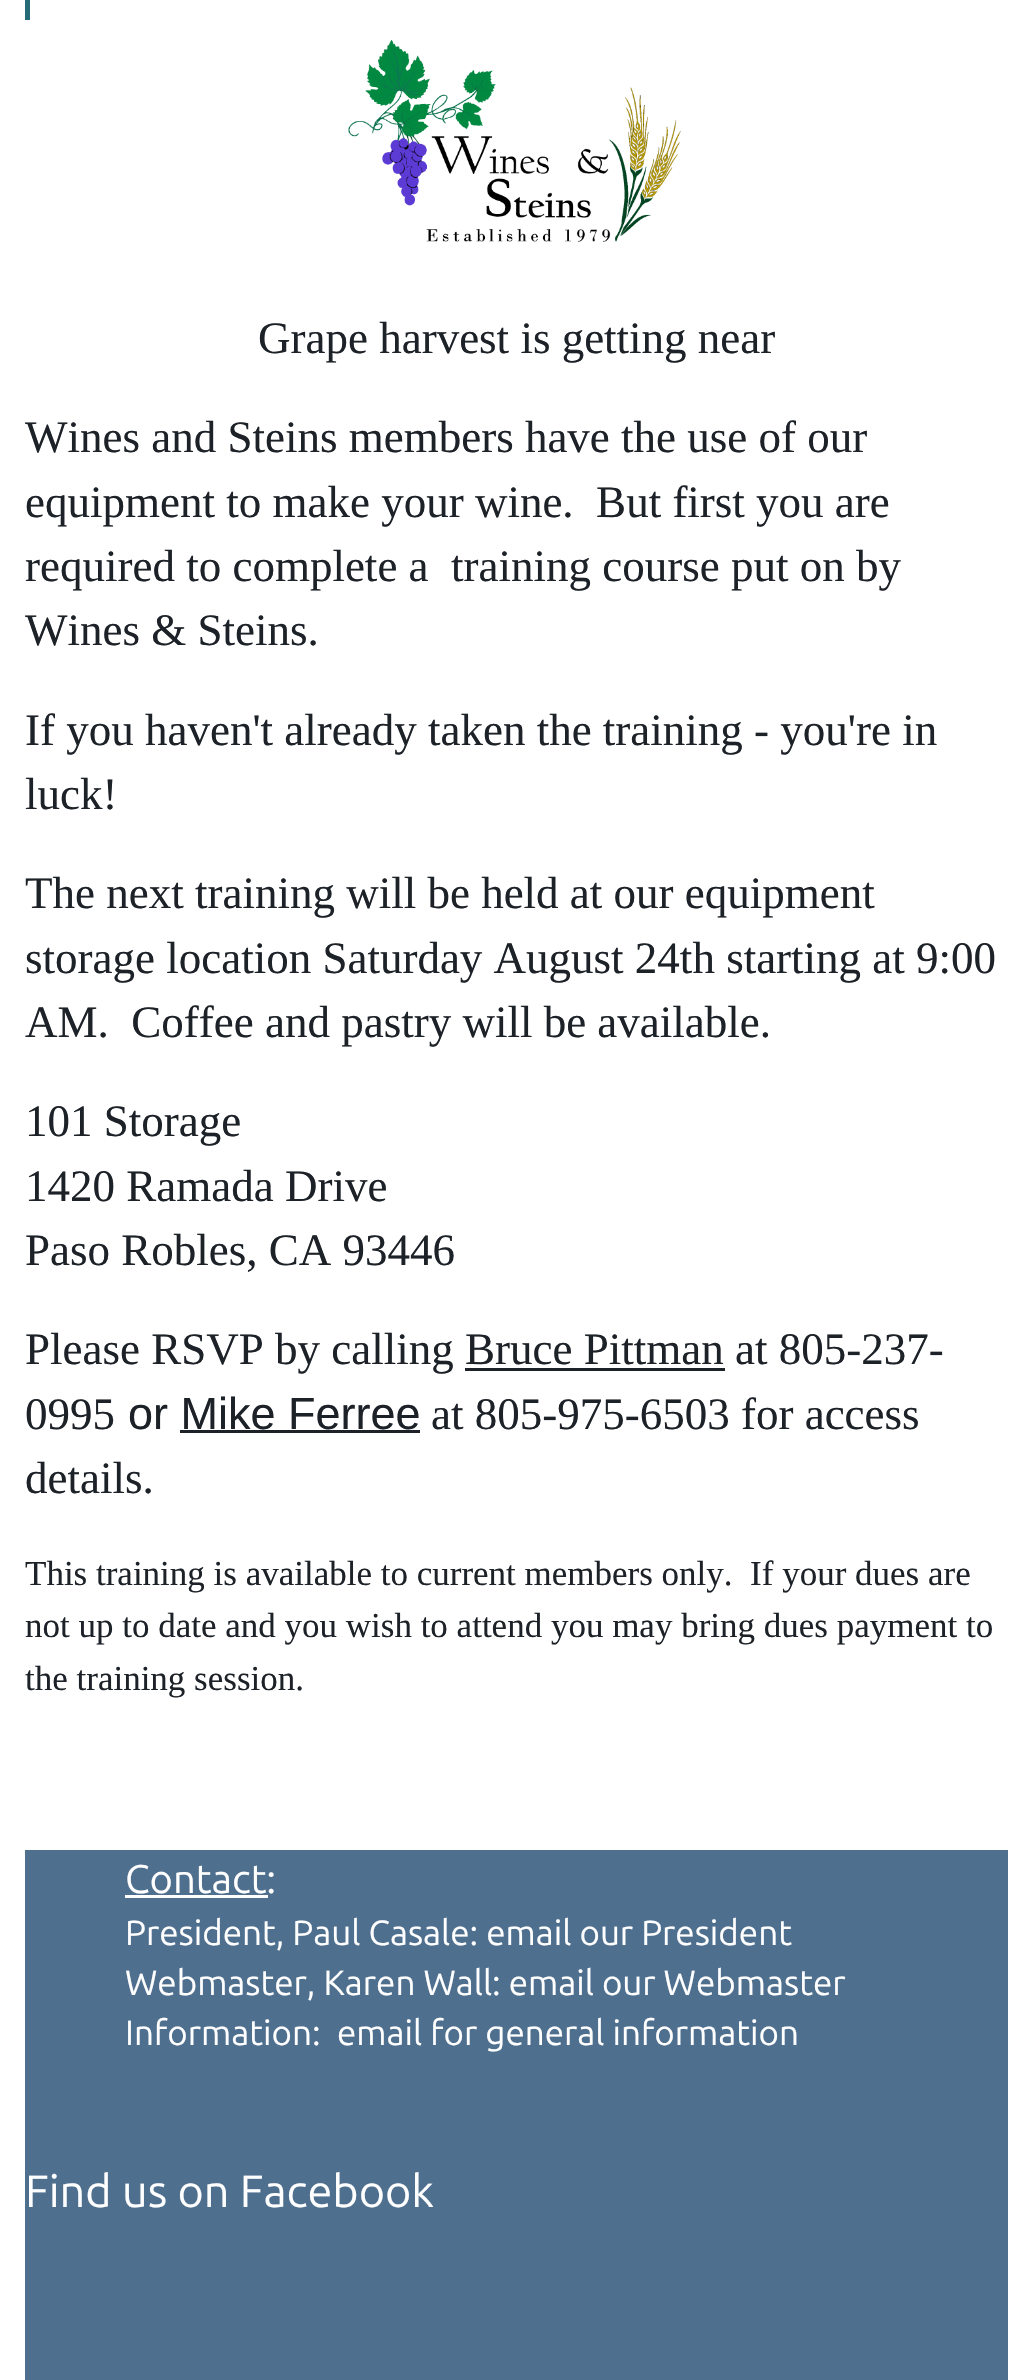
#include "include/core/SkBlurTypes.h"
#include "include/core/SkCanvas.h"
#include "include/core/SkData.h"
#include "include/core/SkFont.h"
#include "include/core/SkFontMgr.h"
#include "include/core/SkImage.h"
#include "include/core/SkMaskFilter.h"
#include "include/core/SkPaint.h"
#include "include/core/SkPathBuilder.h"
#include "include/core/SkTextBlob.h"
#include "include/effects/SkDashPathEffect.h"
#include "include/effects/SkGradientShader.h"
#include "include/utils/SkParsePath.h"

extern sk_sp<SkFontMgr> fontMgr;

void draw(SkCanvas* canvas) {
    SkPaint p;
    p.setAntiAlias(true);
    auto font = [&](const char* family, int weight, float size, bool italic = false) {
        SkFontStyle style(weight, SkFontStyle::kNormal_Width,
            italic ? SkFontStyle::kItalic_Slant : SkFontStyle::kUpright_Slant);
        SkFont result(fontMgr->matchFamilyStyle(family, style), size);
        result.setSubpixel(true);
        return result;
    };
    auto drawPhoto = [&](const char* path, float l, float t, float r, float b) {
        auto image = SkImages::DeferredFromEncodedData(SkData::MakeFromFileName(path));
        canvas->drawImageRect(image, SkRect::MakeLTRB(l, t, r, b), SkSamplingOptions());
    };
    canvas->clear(0xFFFFFFFF);
    p.setColor(0xFF266C78);
    canvas->drawRect(SkRect::MakeLTRB(25, 0, 30, 20), p);
    drawPhoto("media/1.png", 348, 39, 681, 242);
    auto font1 = font("Liberation Serif", 400, 45);
    p.setColor(0xFF1D2228);
    {
        const struct { const char* s; float x, y; } items[] = {
            {"Grape harvest is getting near", 258, 353},
            {"Wines and Steins members have the use of our", 25, 452},
            {"equipment to make your wine.  But first you are", 25, 517},
            {"required to complete a  training course put on by", 25, 581},
            {"Wines & Steins.", 25, 645},
            {"If you haven't already taken the training - you're in", 25, 745},
            {"luck!", 25, 809},
            {"The next training will be held at our equipment", 25, 908},
            {"storage location Saturday August 24th starting at 9:00", 25, 973},
            {"AM.  Coffee and pastry will be available.", 25, 1037},
            {"101 Storage", 25, 1136},
            {"1420 Ramada Drive", 25, 1201},
            {"Paso Robles, CA 93446", 25, 1265},
            {"Please RSVP by calling Bruce Pittman at 805-237-", 25, 1364},
        };
        for (auto [s, x, y] : items) {
            canvas->drawString(s, x, y, font1, p);
        }
    }
    canvas->drawRect(SkRect::MakeLTRB(465, 1368, 725, 1371), p);
    canvas->drawString("0995", 25, 1429, font1, p);
    auto font2 = font("Liberation Sans", 400, 45);
    canvas->drawString("or Mike Ferree", 128, 1429, font2, p);
    canvas->drawRect(SkRect::MakeLTRB(180, 1430, 420, 1433), p);
    canvas->drawString("at 805-975-6503 for access", 431, 1429, font1, p);
    canvas->drawString("details.", 25, 1493, font1, p);
    auto font3 = font("Liberation Serif", 400, 35);
    {
        const struct { const char* s; float x, y; } items[] = {
            {"This training is available to current members only.  If your dues are", 25, 1585},
            {"not up to date and you wish to attend you may bring dues payment to", 25, 1637},
            {"the training session.", 25, 1690},
        };
        for (auto [s, x, y] : items) {
            canvas->drawString(s, x, y, font3, p);
        }
    }
    p.setColor(0xFF4F6F8F);
    canvas->drawRect(SkRect::MakeLTRB(25, 1850, 1008, 2380), p);
    auto font4 = font("Ubuntu", 400, 40);
    p.setColor(0xFFFFFFFF);
    canvas->drawString("Contact:", 125, 1893, font4, p);
    canvas->drawRect(SkRect::MakeLTRB(125, 1895, 268, 1898), p);
    auto font5 = font("Ubuntu", 400, 35);
    {
        const struct { const char* s; float x, y; } items[] = {
            {"President, Paul Casale: email our President", 125, 1945},
            {"Webmaster, Karen Wall: email our Webmaster", 125, 1995},
            {"Information:", 125, 2045},
            {"email for general information", 337, 2045},
        };
        for (auto [s, x, y] : items) {
            canvas->drawString(s, x, y, font5, p);
        }
    }
    auto font6 = font("Ubuntu", 400, 45);
    canvas->drawString("Find us on Facebook", 25, 2207, font6, p);
}
